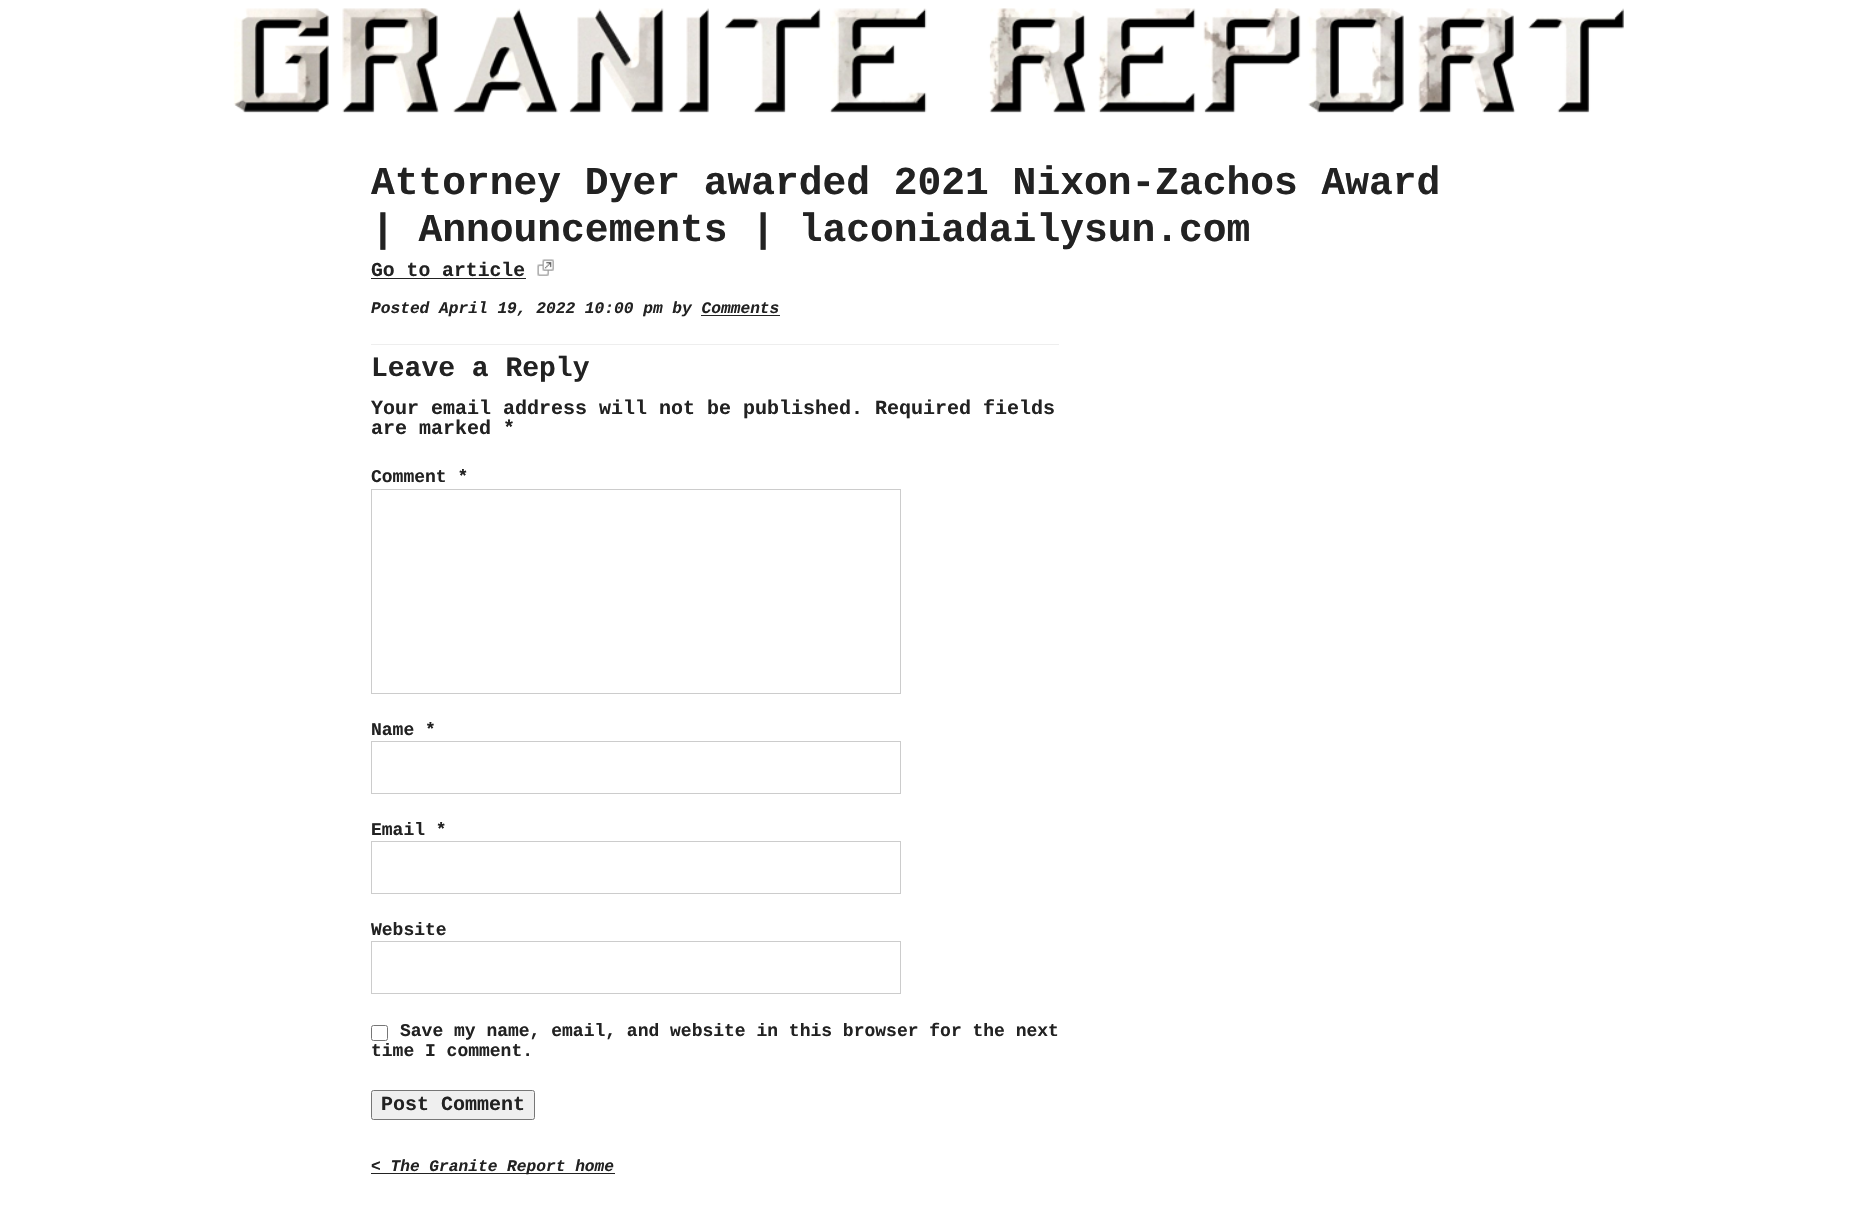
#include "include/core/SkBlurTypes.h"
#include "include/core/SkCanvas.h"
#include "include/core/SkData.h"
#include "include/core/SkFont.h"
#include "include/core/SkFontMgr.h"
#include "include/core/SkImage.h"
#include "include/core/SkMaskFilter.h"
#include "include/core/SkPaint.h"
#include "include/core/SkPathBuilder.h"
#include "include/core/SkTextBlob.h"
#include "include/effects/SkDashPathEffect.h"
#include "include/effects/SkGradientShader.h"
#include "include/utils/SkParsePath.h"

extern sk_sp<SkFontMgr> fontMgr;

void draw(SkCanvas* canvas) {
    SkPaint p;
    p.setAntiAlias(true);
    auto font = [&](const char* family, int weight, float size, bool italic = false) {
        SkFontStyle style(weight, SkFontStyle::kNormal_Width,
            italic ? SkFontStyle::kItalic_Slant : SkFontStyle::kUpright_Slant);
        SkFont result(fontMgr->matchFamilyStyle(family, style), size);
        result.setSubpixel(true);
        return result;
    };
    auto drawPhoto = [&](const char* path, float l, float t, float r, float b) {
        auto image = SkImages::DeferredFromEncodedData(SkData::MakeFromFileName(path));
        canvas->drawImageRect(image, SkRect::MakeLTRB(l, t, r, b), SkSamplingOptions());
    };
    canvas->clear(0xFFFFFFFF);
    drawPhoto("media/1.png", 233, 8, 1624, 113);
    auto font1 = font("Liberation Mono", 700, 39.6f);
    p.setColor(0xFF222222);
    canvas->drawString("Attorney Dyer awarded 2021 Nixon-Zachos Award", 371, 194, font1, p);
    canvas->drawString("| Announcements | laconiadailysun.com", 371, 241, font1, p);
    auto font2 = font("Liberation Mono", 700, 19.75f);
    canvas->drawString("Go to article", 371, 276, font2, p);
    canvas->drawRect(SkRect::MakeLTRB(371, 278, 526, 279), p);
    drawPhoto("media/2.png", 537, 259, 554, 276);
    auto font3 = font("Liberation Mono", 700, 16.2f, true);
    canvas->drawString("Posted April 19, 2022 10:00 pm by Comments", 371, 313, font3, p);
    canvas->drawRect(SkRect::MakeLTRB(701, 315, 780, 316), p);
    p.setColor(0xFFEEEEEE);
    canvas->drawRect(SkRect::MakeLTRB(371, 344, 1059, 345), p);
    auto font4 = font("Liberation Mono", 700, 28);
    p.setColor(0xFF222222);
    canvas->drawString("Leave a Reply", 371, 376, font4, p);
    auto font5 = font("Liberation Mono", 700, 20);
    canvas->drawString("Your email address will not be published. Required fields", 371, 414, font5, p);
    canvas->drawString("are marked *", 371, 434, font5, p);
    auto font6 = font("Liberation Mono", 700, 18);
    canvas->drawString("Comment *", 371, 482, font6, p);
    p.setStyle(SkPaint::kStroke_Style);
    p.setStrokeWidth(1);
    p.setColor(0xFFCCCCCC);
    canvas->drawRect(SkRect::MakeLTRB(371.5f, 489.5f, 900.5f, 693.5f), p);
    p.setStyle(SkPaint::kFill_Style);
    p.setColor(0xFF222222);
    canvas->drawString("Name *", 371, 735, font6, p);
    p.setStyle(SkPaint::kStroke_Style);
    p.setColor(0xFFCCCCCC);
    canvas->drawRect(SkRect::MakeLTRB(371.5f, 741.5f, 900.5f, 793.5f), p);
    p.setStyle(SkPaint::kFill_Style);
    p.setColor(0xFF222222);
    canvas->drawString("Email *", 371, 835, font6, p);
    p.setStyle(SkPaint::kStroke_Style);
    p.setColor(0xFFCCCCCC);
    canvas->drawRect(SkRect::MakeLTRB(371.5f, 841.5f, 900.5f, 893.5f), p);
    p.setStyle(SkPaint::kFill_Style);
    p.setColor(0xFF222222);
    canvas->drawString("Website", 371, 935, font6, p);
    p.setStyle(SkPaint::kStroke_Style);
    p.setColor(0xFFCCCCCC);
    canvas->drawRect(SkRect::MakeLTRB(371.5f, 941.5f, 900.5f, 993.5f), p);
    p.setColor(0xFF767676);
    canvas->drawRoundRect(SkRect::MakeLTRB(371.5f, 1025.5f, 387.5f, 1040.5f), 2, 2, p);
    p.setStyle(SkPaint::kFill_Style);
    p.setColor(0xFF222222);
    canvas->drawString("Save my name, email, and website in this browser for the next", 400, 1036, font6, p);
    canvas->drawString("time I comment.", 371, 1056, font6, p);
    p.setColor(0xFFEFEFEF);
    canvas->drawRoundRect(SkRect::MakeLTRB(371.5f, 1090.5f, 534.5f, 1119.5f), 2, 2, p);
    p.setStyle(SkPaint::kStroke_Style);
    p.setColor(0xFF767676);
    canvas->drawRoundRect(SkRect::MakeLTRB(371.5f, 1090.5f, 534.5f, 1119.5f), 2, 2, p);
    p.setStyle(SkPaint::kFill_Style);
    p.setColor(0xFF222222);
    canvas->drawString("Post Comment", 381, 1110, font5, p);
    canvas->drawRect(SkRect::MakeLTRB(371, 1173, 615, 1174), p);
    canvas->drawString("< The Granite Report home", 371, 1171, font3, p);
}
